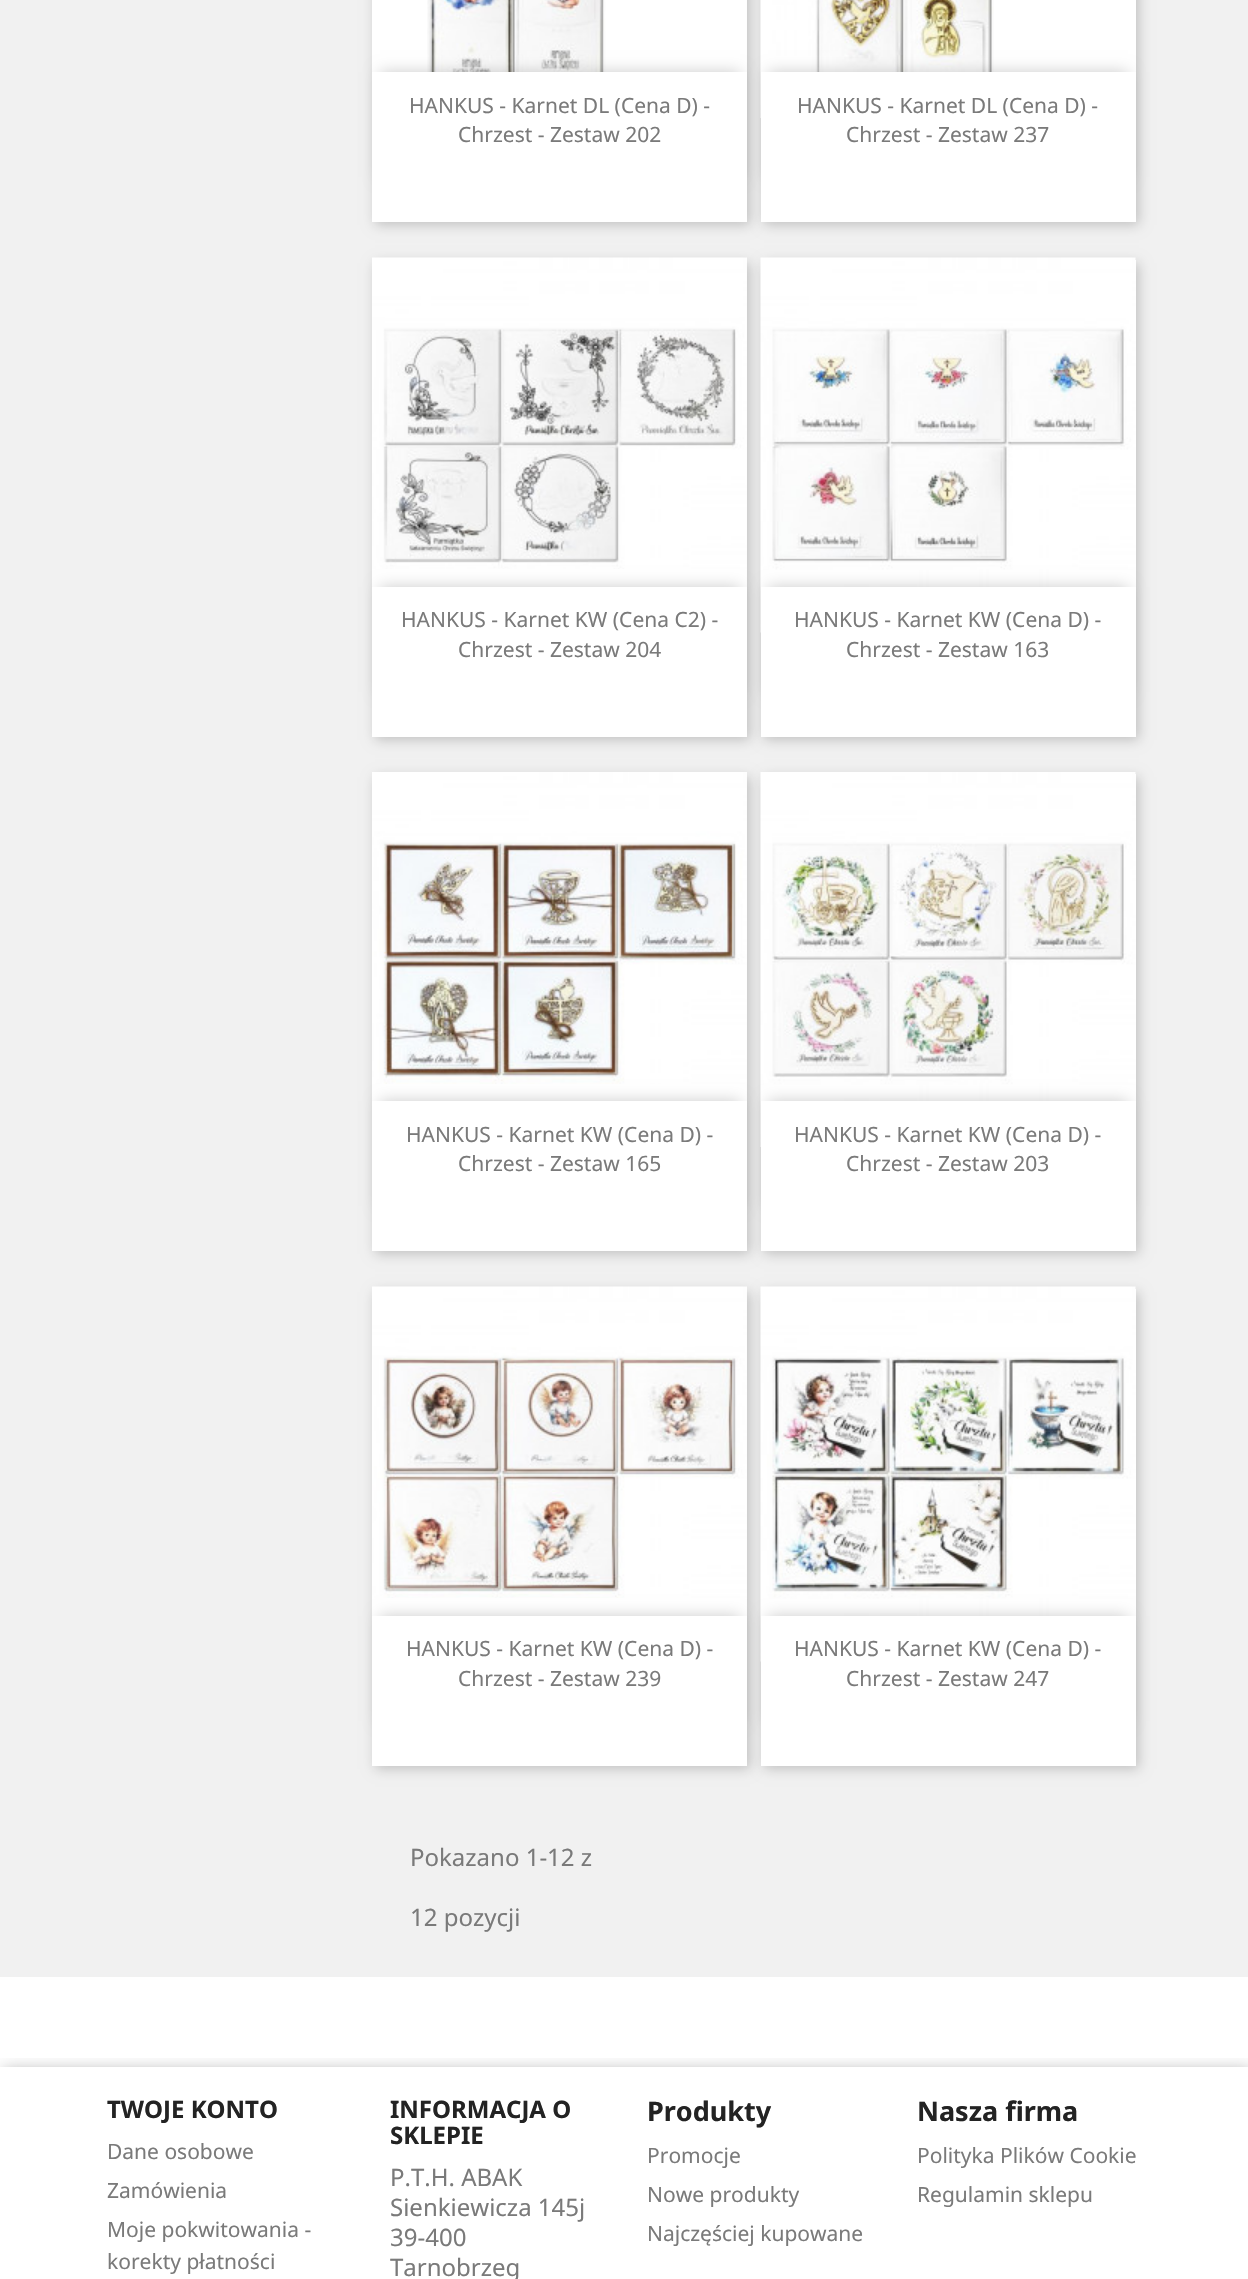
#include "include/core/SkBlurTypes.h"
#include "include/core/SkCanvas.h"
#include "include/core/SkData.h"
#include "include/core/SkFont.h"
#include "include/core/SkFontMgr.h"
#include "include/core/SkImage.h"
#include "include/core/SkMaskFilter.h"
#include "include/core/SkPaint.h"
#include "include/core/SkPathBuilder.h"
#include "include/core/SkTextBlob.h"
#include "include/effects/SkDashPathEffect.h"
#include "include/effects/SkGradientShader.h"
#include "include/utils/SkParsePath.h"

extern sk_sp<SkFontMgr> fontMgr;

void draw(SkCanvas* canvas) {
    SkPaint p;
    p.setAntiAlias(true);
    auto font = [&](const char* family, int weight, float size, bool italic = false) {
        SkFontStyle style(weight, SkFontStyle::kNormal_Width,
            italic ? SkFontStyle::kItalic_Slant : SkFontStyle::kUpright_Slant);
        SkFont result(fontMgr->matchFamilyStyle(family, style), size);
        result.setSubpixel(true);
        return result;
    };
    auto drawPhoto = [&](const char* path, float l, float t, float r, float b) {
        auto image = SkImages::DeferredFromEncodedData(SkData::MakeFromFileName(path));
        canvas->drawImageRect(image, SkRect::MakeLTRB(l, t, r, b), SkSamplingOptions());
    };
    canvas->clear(0xFFFFFFFF);
    p.setColor(0xFFF1F1F1);
    canvas->drawRect(SkRect::MakeLTRB(0, 0, 1248, 1977), p);
    p.setColor(0x33000000);
    p.setMaskFilter(SkMaskFilter::MakeBlur(kNormal_SkBlurStyle, 6));
    canvas->drawRect(SkRect::MakeLTRB(375, -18, 750, 225), p);
    p.setMaskFilter(nullptr);
    p.setColor(0xFFFFFFFF);
    canvas->drawRect(SkRect::MakeLTRB(372, 0, 747, 72), p);
    drawPhoto("media/1.png", 427, 0, 606, 72);
    p.setColor(0x33000000);
    p.setMaskFilter(SkMaskFilter::MakeBlur(kNormal_SkBlurStyle, 6));
    canvas->drawRect(SkRect::MakeLTRB(764, -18, 1139, 225), p);
    p.setMaskFilter(nullptr);
    drawPhoto("media/2.png", 760, 0, 994, 118);
    p.setMaskFilter(SkMaskFilter::MakeBlur(kNormal_SkBlurStyle, 7.5f));
    canvas->drawRect(SkRect::MakeLTRB(380, 72, 740, 177), p);
    p.setMaskFilter(nullptr);
    p.setColor(0xFFFFFFFF);
    canvas->drawRect(SkRect::MakeLTRB(994, 0, 1136, 72), p);
    p.setColor(0x33000000);
    p.setMaskFilter(SkMaskFilter::MakeBlur(kNormal_SkBlurStyle, 7.5f));
    canvas->drawRect(SkRect::MakeLTRB(768, 72, 1128, 177), p);
    p.setMaskFilter(nullptr);
    p.setColor(0xFFFFFFFF);
    canvas->drawRect(SkRect::MakeLTRB(372, 72, 747, 222), p);
    auto font1 = font("Noto Sans", 400, 21);
    p.setColor(0xFF7A7A7A);
    canvas->drawString("HANKUS - Karnet DL (Cena D) -", 409, 113, font1, p);
    canvas->drawString("Chrzest - Zestaw 202", 458, 142, font1, p);
    p.setColor(0xFFFFFFFF);
    canvas->drawRect(SkRect::MakeLTRB(761, 72, 1136, 222), p);
    p.setColor(0xFF7A7A7A);
    canvas->drawString("HANKUS - Karnet DL (Cena D) -", 797, 113, font1, p);
    canvas->drawString("Chrzest - Zestaw 237", 846, 142, font1, p);
    p.setColor(0x33000000);
    p.setMaskFilter(SkMaskFilter::MakeBlur(kNormal_SkBlurStyle, 6));
    canvas->drawRect(SkRect::MakeLTRB(375, 263, 750, 740), p);
    p.setMaskFilter(nullptr);
    p.setColor(0xFFFFFFFF);
    canvas->drawRect(SkRect::MakeLTRB(372, 569, 747, 587), p);
    drawPhoto("media/3.png", 372, 257, 747, 569);
    p.setColor(0x33000000);
    p.setMaskFilter(SkMaskFilter::MakeBlur(kNormal_SkBlurStyle, 6));
    canvas->drawRect(SkRect::MakeLTRB(764, 263, 1139, 740), p);
    p.setMaskFilter(nullptr);
    p.setColor(0xFFFFFFFF);
    canvas->drawRect(SkRect::MakeLTRB(1135, 260, 1136, 587), p);
    drawPhoto("media/4.png", 760, 257, 1136, 633);
    p.setColor(0x33000000);
    p.setMaskFilter(SkMaskFilter::MakeBlur(kNormal_SkBlurStyle, 7.5f));
    canvas->drawRect(SkRect::MakeLTRB(380, 587, 740, 692), p);
    p.setMaskFilter(nullptr);
    p.setMaskFilter(SkMaskFilter::MakeBlur(kNormal_SkBlurStyle, 7.5f));
    canvas->drawRect(SkRect::MakeLTRB(768, 587, 1128, 692), p);
    p.setMaskFilter(nullptr);
    p.setColor(0xFFFFFFFF);
    canvas->drawRect(SkRect::MakeLTRB(372, 587, 747, 737), p);
    p.setColor(0xFF7A7A7A);
    canvas->drawString("HANKUS - Karnet KW (Cena C2) -", 401, 627, font1, p);
    canvas->drawString("Chrzest - Zestaw 204", 458, 657, font1, p);
    p.setColor(0xFFFFFFFF);
    canvas->drawRect(SkRect::MakeLTRB(761, 587, 1136, 737), p);
    p.setColor(0xFF7A7A7A);
    canvas->drawString("HANKUS - Karnet KW (Cena D) -", 794, 627, font1, p);
    canvas->drawString("Chrzest - Zestaw 163", 846, 657, font1, p);
    p.setColor(0x33000000);
    p.setMaskFilter(SkMaskFilter::MakeBlur(kNormal_SkBlurStyle, 6));
    canvas->drawRect(SkRect::MakeLTRB(375, 777, 750, 1254), p);
    p.setMaskFilter(nullptr);
    p.setColor(0xFFFFFFFF);
    canvas->drawRect(SkRect::MakeLTRB(372, 1084, 747, 1101), p);
    drawPhoto("media/5.png", 372, 772, 747, 1084);
    p.setColor(0x33000000);
    p.setMaskFilter(SkMaskFilter::MakeBlur(kNormal_SkBlurStyle, 6));
    canvas->drawRect(SkRect::MakeLTRB(764, 777, 1139, 1254), p);
    p.setMaskFilter(nullptr);
    p.setColor(0xFFFFFFFF);
    canvas->drawRect(SkRect::MakeLTRB(1135, 774, 1136, 1101), p);
    drawPhoto("media/6.png", 760, 772, 1136, 1147);
    p.setColor(0x33000000);
    p.setMaskFilter(SkMaskFilter::MakeBlur(kNormal_SkBlurStyle, 7.5f));
    canvas->drawRect(SkRect::MakeLTRB(380, 1101, 740, 1206), p);
    p.setMaskFilter(nullptr);
    p.setMaskFilter(SkMaskFilter::MakeBlur(kNormal_SkBlurStyle, 7.5f));
    canvas->drawRect(SkRect::MakeLTRB(768, 1101, 1128, 1206), p);
    p.setMaskFilter(nullptr);
    p.setColor(0xFFFFFFFF);
    canvas->drawRect(SkRect::MakeLTRB(372, 1101, 747, 1251), p);
    p.setColor(0xFF7A7A7A);
    canvas->drawString("HANKUS - Karnet KW (Cena D) -", 406, 1142, font1, p);
    canvas->drawString("Chrzest - Zestaw 165", 458, 1171, font1, p);
    p.setColor(0xFFFFFFFF);
    canvas->drawRect(SkRect::MakeLTRB(761, 1101, 1136, 1251), p);
    p.setColor(0xFF7A7A7A);
    canvas->drawString("HANKUS - Karnet KW (Cena D) -", 794, 1142, font1, p);
    canvas->drawString("Chrzest - Zestaw 203", 846, 1171, font1, p);
    p.setColor(0x33000000);
    p.setMaskFilter(SkMaskFilter::MakeBlur(kNormal_SkBlurStyle, 6));
    canvas->drawRect(SkRect::MakeLTRB(375, 1292, 750, 1769), p);
    p.setMaskFilter(nullptr);
    p.setColor(0xFFFFFFFF);
    canvas->drawRect(SkRect::MakeLTRB(372, 1598, 747, 1616), p);
    drawPhoto("media/7.png", 372, 1286, 747, 1598);
    p.setColor(0x33000000);
    p.setMaskFilter(SkMaskFilter::MakeBlur(kNormal_SkBlurStyle, 6));
    canvas->drawRect(SkRect::MakeLTRB(764, 1292, 1139, 1769), p);
    p.setMaskFilter(nullptr);
    p.setColor(0xFFFFFFFF);
    canvas->drawRect(SkRect::MakeLTRB(1135, 1289, 1136, 1616), p);
    drawPhoto("media/8.png", 760, 1286, 1136, 1662);
    p.setColor(0x33000000);
    p.setMaskFilter(SkMaskFilter::MakeBlur(kNormal_SkBlurStyle, 7.5f));
    canvas->drawRect(SkRect::MakeLTRB(380, 1616, 740, 1721), p);
    p.setMaskFilter(nullptr);
    p.setMaskFilter(SkMaskFilter::MakeBlur(kNormal_SkBlurStyle, 7.5f));
    canvas->drawRect(SkRect::MakeLTRB(768, 1616, 1128, 1721), p);
    p.setMaskFilter(nullptr);
    p.setColor(0xFFFFFFFF);
    canvas->drawRect(SkRect::MakeLTRB(372, 1616, 747, 1766), p);
    p.setColor(0xFF7A7A7A);
    canvas->drawString("HANKUS - Karnet KW (Cena D) -", 406, 1656, font1, p);
    canvas->drawString("Chrzest - Zestaw 239", 458, 1686, font1, p);
    p.setColor(0xFFFFFFFF);
    canvas->drawRect(SkRect::MakeLTRB(761, 1616, 1136, 1766), p);
    p.setColor(0xFF7A7A7A);
    canvas->drawString("HANKUS - Karnet KW (Cena D) -", 794, 1656, font1, p);
    canvas->drawString("Chrzest - Zestaw 247", 846, 1686, font1, p);
    auto font2 = font("Noto Sans", 400, 24);
    canvas->drawString("Pokazano 1-12 z", 410, 1866, font2, p);
    canvas->drawString("12 pozycji", 410, 1926, font2, p);
    canvas->save();
    canvas->clipRect(SkRect::MakeLTRB(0, 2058, 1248, 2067));
    p.setColor(0x4D000000);
    p.setMaskFilter(SkMaskFilter::MakeBlur(kNormal_SkBlurStyle, 8));
    canvas->drawRect(SkRect::MakeLTRB(3, 2070, 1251, 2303), p);
    p.setMaskFilter(nullptr);
    canvas->restore();
    auto font3 = font("Noto Sans", 700, 24);
    p.setColor(0xFF232323);
    canvas->drawString("TWOJE KONTO", 107, 2118, font3, p);
    p.setColor(0xFF7A7A7A);
    {
        const struct { const char* s; float x, y; } items[] = {
            {"Dane osobowe", 107, 2159},
            {"Zamówienia", 107, 2198},
            {"Moje pokwitowania -", 107, 2237},
            {"korekty płatności", 107, 2269},
        };
        for (auto [s, x, y] : items) {
            canvas->drawString(s, x, y, font1, p);
        }
    }
    p.setColor(0xFF232323);
    canvas->drawString("INFORMACJA O", 390, 2118, font3, p);
    canvas->drawString("SKLEPIE", 390, 2144, font3, p);
    p.setColor(0xFF7A7A7A);
    {
        const struct { const char* s; float x, y; } items[] = {
            {"P.T.H. ABAK", 390, 2186},
            {"Sienkiewicza 145j", 390, 2216},
            {"39-400", 390, 2246},
            {"Tarnobrzeg", 390, 2276},
        };
        for (auto [s, x, y] : items) {
            canvas->drawString(s, x, y, font2, p);
        }
    }
    auto font4 = font("Noto Sans", 700, 27);
    p.setColor(0xFF232323);
    canvas->drawString("Produkty", 647, 2121, font4, p);
    p.setColor(0xFF7A7A7A);
    {
        const struct { const char* s; float x, y; } items[] = {
            {"Promocje", 647, 2163},
            {"Nowe produkty", 647, 2202},
            {"Najczęściej kupowane", 647, 2241},
        };
        for (auto [s, x, y] : items) {
            canvas->drawString(s, x, y, font1, p);
        }
    }
    p.setColor(0xFF232323);
    canvas->drawString("Nasza firma", 917, 2121, font4, p);
    p.setColor(0xFF7A7A7A);
    canvas->drawString("Polityka Plików Cookie", 917, 2163, font1, p);
    canvas->drawString("Regulamin sklepu", 917, 2202, font1, p);
}
